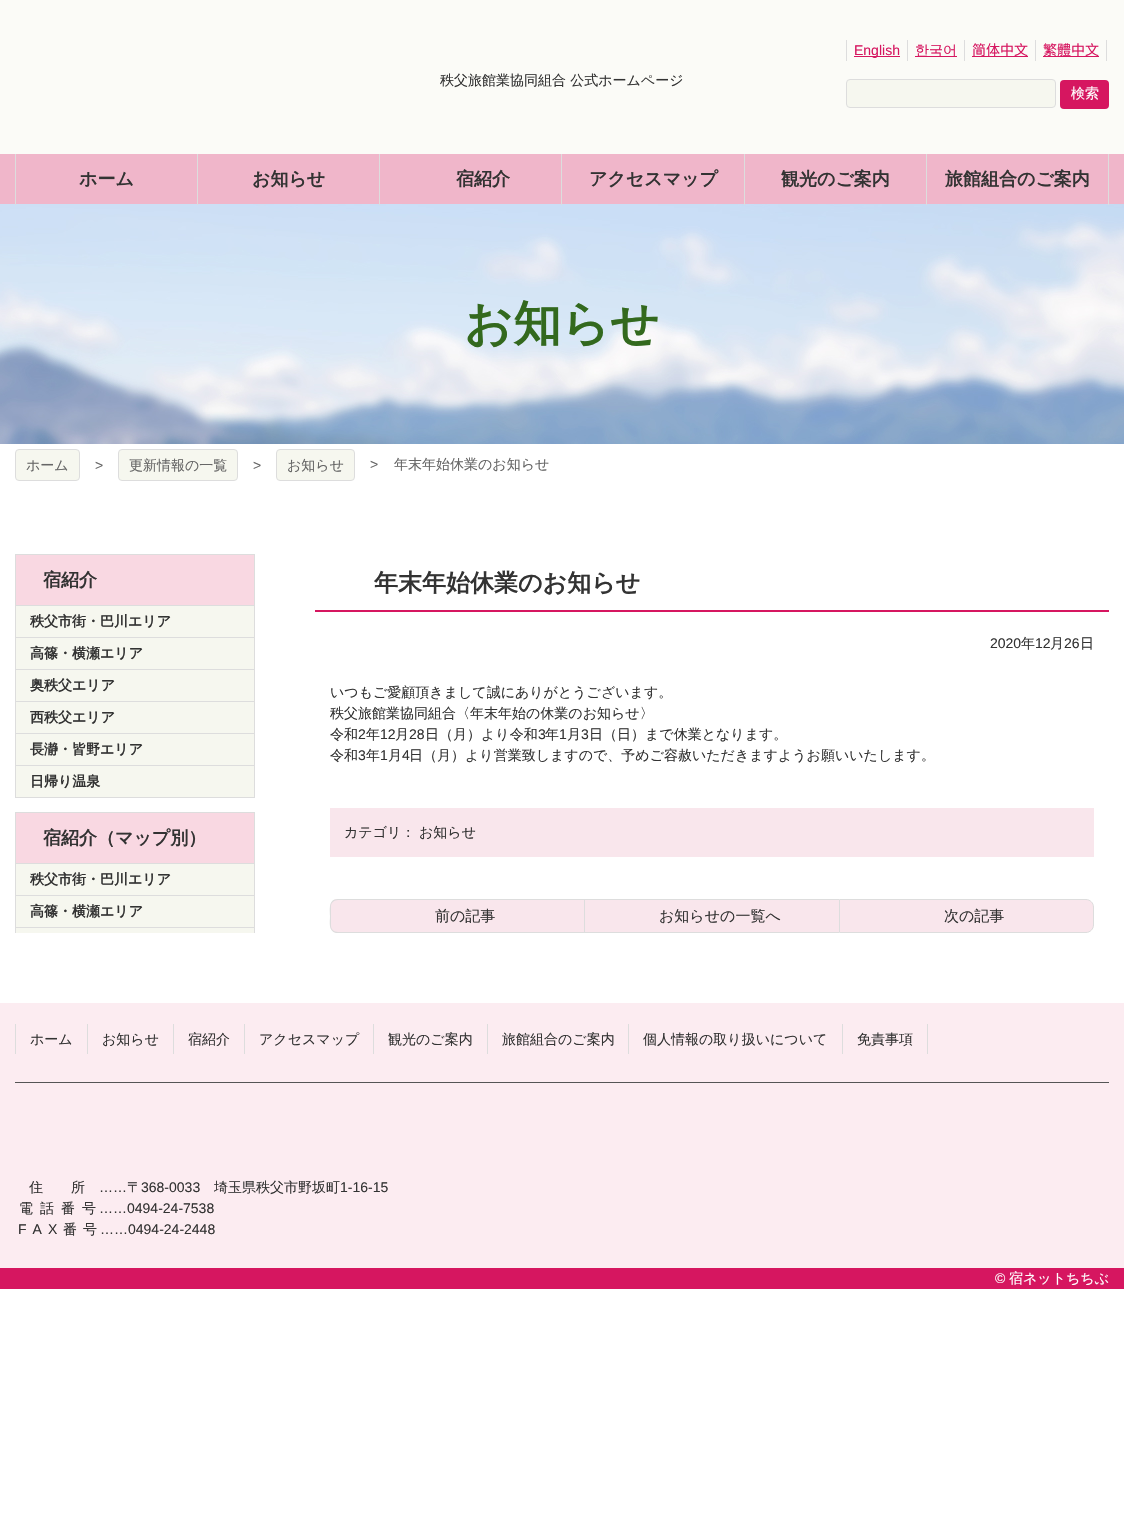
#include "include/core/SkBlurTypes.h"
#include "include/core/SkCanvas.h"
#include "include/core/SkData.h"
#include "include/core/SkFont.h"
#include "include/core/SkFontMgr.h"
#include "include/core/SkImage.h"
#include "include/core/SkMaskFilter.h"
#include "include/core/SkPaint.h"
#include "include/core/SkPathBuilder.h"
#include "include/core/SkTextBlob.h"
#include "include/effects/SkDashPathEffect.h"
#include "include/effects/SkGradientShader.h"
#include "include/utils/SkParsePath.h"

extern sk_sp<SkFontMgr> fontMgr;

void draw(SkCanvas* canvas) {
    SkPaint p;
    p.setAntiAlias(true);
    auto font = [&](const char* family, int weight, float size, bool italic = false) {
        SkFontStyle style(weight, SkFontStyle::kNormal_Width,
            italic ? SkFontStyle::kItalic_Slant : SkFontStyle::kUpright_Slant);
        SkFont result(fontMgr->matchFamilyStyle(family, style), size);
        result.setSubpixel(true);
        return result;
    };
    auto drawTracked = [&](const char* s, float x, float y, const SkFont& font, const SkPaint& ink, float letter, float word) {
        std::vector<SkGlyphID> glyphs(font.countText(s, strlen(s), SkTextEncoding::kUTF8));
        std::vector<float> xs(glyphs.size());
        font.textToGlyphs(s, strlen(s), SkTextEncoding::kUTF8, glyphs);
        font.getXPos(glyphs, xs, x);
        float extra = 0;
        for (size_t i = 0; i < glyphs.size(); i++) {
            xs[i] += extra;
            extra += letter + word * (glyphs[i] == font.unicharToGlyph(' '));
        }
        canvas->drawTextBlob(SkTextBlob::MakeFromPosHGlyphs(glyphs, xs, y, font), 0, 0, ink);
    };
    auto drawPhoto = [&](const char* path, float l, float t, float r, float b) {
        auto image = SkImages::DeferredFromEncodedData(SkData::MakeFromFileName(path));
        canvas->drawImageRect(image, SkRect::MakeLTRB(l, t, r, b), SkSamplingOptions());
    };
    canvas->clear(0xFFFFFFFF);
    p.setColor(0xFFFBFBF7);
    canvas->drawRect(SkRect::MakeLTRB(0, 0, 1124, 154), p);
    auto font1 = font("WenQuanYi Zen Hei", 500, 14);
    p.setColor(0xFF333333);
    canvas->drawString("秩父旅館業協同組合 公式ホームページ", 440, 85, font1, p);
    {
        const struct { float l, t, r, b; SkColor color; } items[] = {
            {846, 40, 847, 61, 0xFFDDDDDD},
            {907, 40, 908, 61, 0xFFDDDDDD},
            {854, 56, 900, 57, 0xFFD61660},
        };
        for (auto [l, t, r, b, color] : items) {
            p.setColor(color);
            canvas->drawRect(SkRect::MakeLTRB(l, t, r, b), p);
        }
    }
    auto font2 = font("Liberation Sans", 400, 14);
    canvas->drawString("English", 854, 55, font2, p);
    p.setColor(0xFFDDDDDD);
    canvas->drawRect(SkRect::MakeLTRB(964, 40, 965, 61), p);
    p.setColor(0xFFD61660);
    canvas->drawRect(SkRect::MakeLTRB(915, 56, 957, 57), p);
    canvas->drawString("한국어", 915, 55, font1, p);
    p.setColor(0xFFDDDDDD);
    canvas->drawRect(SkRect::MakeLTRB(1035, 40, 1036, 61), p);
    p.setColor(0xFFD61660);
    canvas->drawRect(SkRect::MakeLTRB(972, 56, 1028, 57), p);
    auto font3 = font("Noto Sans CJK SC", 400, 14);
    canvas->drawString("简体中文", 972, 55, font3, p);
    p.setColor(0xFFDDDDDD);
    canvas->drawRect(SkRect::MakeLTRB(1106, 40, 1107, 61), p);
    p.setColor(0xFFD61660);
    canvas->drawRect(SkRect::MakeLTRB(1043, 56, 1099, 57), p);
    auto font4 = font("Noto Sans CJK TC", 400, 14);
    canvas->drawString("繁體中文", 1043, 55, font4, p);
    p.setColor(0xFFF6F7EF);
    canvas->drawRoundRect(SkRect::MakeLTRB(846.5f, 79.5f, 1055.5f, 107.5f), 3.5f, 3.5f, p);
    p.setStyle(SkPaint::kStroke_Style);
    p.setStrokeWidth(1);
    p.setColor(0xFFDDDDDD);
    canvas->drawRoundRect(SkRect::MakeLTRB(846.5f, 79.5f, 1055.5f, 107.5f), 3.5f, 3.5f, p);
    p.setStyle(SkPaint::kFill_Style);
    p.setColor(0xFFD61660);
    canvas->drawRoundRect(SkRect::MakeLTRB(1060, 80, 1109, 109), 4, 4, p);
    p.setColor(0xFFFFFFFF);
    canvas->drawString("検索", 1071, 98, font1, p);
    p.setColor(0xFFF0B6CA);
    canvas->drawRect(SkRect::MakeLTRB(0, 154, 1124, 204), p);
    drawPhoto("media/1.png", 0, 204, 1124, 444);
    p.setColor(0xFFDDDDDD);
    canvas->drawRect(SkRect::MakeLTRB(15, 154, 16, 205), p);
    auto font5 = font("WenQuanYi Zen Hei", 700, 18);
    p.setColor(0xFF333333);
    canvas->drawString("ホーム", 79, 185, font5, p);
    p.setColor(0xFFDDDDDD);
    canvas->drawRect(SkRect::MakeLTRB(197, 154, 198, 205), p);
    p.setColor(0xFF333333);
    canvas->drawString("お知らせ", 252, 185, font5, p);
    p.setColor(0xFFDDDDDD);
    canvas->drawRect(SkRect::MakeLTRB(379, 154, 380, 205), p);
    p.setColor(0xFF333333);
    canvas->drawString("宿紹介", 456, 185, font5, p);
    p.setColor(0xFFDDDDDD);
    canvas->drawRect(SkRect::MakeLTRB(561, 154, 562, 205), p);
    p.setColor(0xFF333333);
    canvas->drawString("アクセスマップ", 589, 185, font5, p);
    p.setColor(0xFFDDDDDD);
    canvas->drawRect(SkRect::MakeLTRB(744, 154, 745, 205), p);
    p.setColor(0xFF333333);
    canvas->drawString("観光のご案内", 781, 185, font5, p);
    p.setColor(0xFFDDDDDD);
    canvas->drawRect(SkRect::MakeLTRB(1108, 154, 1109, 205), p);
    canvas->drawRect(SkRect::MakeLTRB(926, 154, 927, 205), p);
    p.setColor(0xFF333333);
    canvas->drawString("旅館組合のご案内", 945, 185, font5, p);
    auto font6 = font("WenQuanYi Zen Hei", 700, 48);
    p.setColor(0xFF33691E);
    canvas->drawString("お知らせ", 464, 340, font6, p);
    p.setColor(0xFFF6F7EF);
    canvas->drawRoundRect(SkRect::MakeLTRB(15.5f, 449.5f, 79.5f, 480.5f), 3.5f, 3.5f, p);
    p.setStyle(SkPaint::kStroke_Style);
    p.setColor(0xFFDDDDDD);
    canvas->drawRoundRect(SkRect::MakeLTRB(15.5f, 449.5f, 79.5f, 480.5f), 3.5f, 3.5f, p);
    p.setStyle(SkPaint::kFill_Style);
    p.setColor(0xFF666666);
    canvas->drawString("ホーム", 26, 470, font1, p);
    canvas->drawString(">", 95, 470, font2, p);
    p.setColor(0xFFF6F7EF);
    canvas->drawRoundRect(SkRect::MakeLTRB(118.5f, 449.5f, 237.5f, 480.5f), 3.5f, 3.5f, p);
    p.setStyle(SkPaint::kStroke_Style);
    p.setColor(0xFFDDDDDD);
    canvas->drawRoundRect(SkRect::MakeLTRB(118.5f, 449.5f, 237.5f, 480.5f), 3.5f, 3.5f, p);
    p.setStyle(SkPaint::kFill_Style);
    p.setColor(0xFF666666);
    canvas->drawString("更新情報の一覧", 129, 470, font1, p);
    canvas->drawString(">", 253, 470, font2, p);
    p.setColor(0xFFF6F7EF);
    canvas->drawRoundRect(SkRect::MakeLTRB(276.5f, 449.5f, 354.5f, 480.5f), 3.5f, 3.5f, p);
    p.setStyle(SkPaint::kStroke_Style);
    p.setColor(0xFFDDDDDD);
    canvas->drawRoundRect(SkRect::MakeLTRB(276.5f, 449.5f, 354.5f, 480.5f), 3.5f, 3.5f, p);
    p.setStyle(SkPaint::kFill_Style);
    p.setColor(0xFF666666);
    canvas->drawString("お知らせ", 287, 470, font1, p);
    canvas->drawString(">", 370, 469, font2, p);
    canvas->drawString("年末年始休業のお知らせ", 394, 469, font1, p);
    p.setStyle(SkPaint::kStroke_Style);
    p.setColor(0xFFDDDDDD);
    canvas->drawRect(SkRect::MakeLTRB(15.5f, 554.5f, 254.5f, 797.5f), p);
    p.setStyle(SkPaint::kFill_Style);
    p.setColor(0xFFF9D8E2);
    canvas->drawRect(SkRect::MakeLTRB(16, 555, 254, 605), p);
    p.setColor(0xFF333333);
    canvas->drawString("宿紹介", 43, 586, font5, p);
    p.setColor(0xFFDDDDDD);
    canvas->drawRect(SkRect::MakeLTRB(16, 605, 254, 606), p);
    p.setColor(0xFFF6F7EF);
    canvas->drawRect(SkRect::MakeLTRB(16, 606, 254, 637), p);
    auto font7 = font("WenQuanYi Zen Hei", 700, 14);
    p.setColor(0xFF333333);
    canvas->drawString("秩父市街・巴川エリア", 30, 626, font7, p);
    p.setColor(0xFFDDDDDD);
    canvas->drawRect(SkRect::MakeLTRB(16, 637, 254, 638), p);
    p.setColor(0xFFF6F7EF);
    canvas->drawRect(SkRect::MakeLTRB(16, 638, 254, 669), p);
    p.setColor(0xFF333333);
    canvas->drawString("高篠・横瀬エリア", 30, 658, font7, p);
    p.setColor(0xFFDDDDDD);
    canvas->drawRect(SkRect::MakeLTRB(16, 669, 254, 670), p);
    p.setColor(0xFFF6F7EF);
    canvas->drawRect(SkRect::MakeLTRB(16, 670, 254, 701), p);
    p.setColor(0xFF333333);
    canvas->drawString("奥秩父エリア", 30, 690, font7, p);
    p.setColor(0xFFDDDDDD);
    canvas->drawRect(SkRect::MakeLTRB(16, 701, 254, 702), p);
    p.setColor(0xFFF6F7EF);
    canvas->drawRect(SkRect::MakeLTRB(16, 702, 254, 733), p);
    p.setColor(0xFF333333);
    canvas->drawString("西秩父エリア", 30, 722, font7, p);
    p.setColor(0xFFDDDDDD);
    canvas->drawRect(SkRect::MakeLTRB(16, 733, 254, 734), p);
    p.setColor(0xFFF6F7EF);
    canvas->drawRect(SkRect::MakeLTRB(16, 734, 254, 765), p);
    p.setColor(0xFF333333);
    canvas->drawString("長瀞・皆野エリア", 30, 754, font7, p);
    p.setColor(0xFFDDDDDD);
    canvas->drawRect(SkRect::MakeLTRB(16, 765, 254, 766), p);
    p.setColor(0xFFF6F7EF);
    canvas->drawRect(SkRect::MakeLTRB(16, 766, 254, 797), p);
    p.setColor(0xFF333333);
    canvas->drawString("日帰り温泉", 30, 786, font7, p);
    p.setColor(0xFFFCECF1);
    canvas->drawRect(SkRect::MakeLTRB(0, 1003, 1124, 1268), p);
    canvas->save();
    canvas->clipRect(SkRect::MakeLTRB(15, 554, 255, 933));
    p.setStyle(SkPaint::kStroke_Style);
    p.setColor(0xFFDDDDDD);
    canvas->drawRect(SkRect::MakeLTRB(15.5f, 812.5f, 254.5f, 1055.5f), p);
    canvas->restore();
    p.setStyle(SkPaint::kFill_Style);
    p.setColor(0xFFF9D8E2);
    canvas->drawRect(SkRect::MakeLTRB(16, 813, 254, 863), p);
    p.setColor(0xFF333333);
    canvas->drawString("宿紹介（マップ別）", 43, 844, font5, p);
    p.setColor(0xFFDDDDDD);
    canvas->drawRect(SkRect::MakeLTRB(16, 863, 254, 864), p);
    p.setColor(0xFFF6F7EF);
    canvas->drawRect(SkRect::MakeLTRB(16, 864, 254, 895), p);
    p.setColor(0xFF333333);
    canvas->drawString("秩父市街・巴川エリア", 30, 884, font7, p);
    p.setColor(0xFFDDDDDD);
    canvas->drawRect(SkRect::MakeLTRB(16, 895, 254, 896), p);
    p.setColor(0xFFF6F7EF);
    canvas->drawRect(SkRect::MakeLTRB(16, 896, 254, 927), p);
    p.setColor(0xFF333333);
    canvas->drawString("高篠・横瀬エリア", 30, 916, font7, p);
    {
        const struct { float l, t, r, b; SkColor color; } items[] = {
            {16, 927, 254, 928, 0xFFDDDDDD},
            {16, 928, 254, 933, 0xFFF6F7EF},
            {315, 610, 1109, 612, 0xFFD61660},
        };
        for (auto [l, t, r, b, color] : items) {
            p.setColor(color);
            canvas->drawRect(SkRect::MakeLTRB(l, t, r, b), p);
        }
    }
    auto font8 = font("WenQuanYi Zen Hei", 700, 24);
    p.setColor(0xFF333333);
    canvas->drawString("年末年始休業のお知らせ", 374, 591, font8, p);
    canvas->drawString("2020", 990, 648, font2, p);
    canvas->drawString("年", 1021, 648, font1, p);
    canvas->drawString("12", 1035, 648, font2, p);
    canvas->drawString("月", 1050, 648, font1, p);
    canvas->drawString("26", 1064, 648, font2, p);
    {
        const struct { const char* s; float x, y; } items[] = {
            {"日", 1080, 648},
            {"いつもご愛顧頂きまして誠にありがとうございます。", 330, 697},
            {"秩父旅館業協同組合〈年末年始の休業のお知らせ〉", 330, 718},
            {"令和", 330, 739},
        };
        for (auto [s, x, y] : items) {
            canvas->drawString(s, x, y, font1, p);
        }
    }
    canvas->drawString("2", 358, 739, font2, p);
    canvas->drawString("年", 366, 739, font1, p);
    canvas->drawString("12", 380, 739, font2, p);
    canvas->drawString("月", 395, 739, font1, p);
    canvas->drawString("28", 409, 739, font2, p);
    canvas->drawString("日（月）より令和", 425, 739, font1, p);
    canvas->drawString("3", 538, 739, font2, p);
    canvas->drawString("年", 545, 739, font1, p);
    canvas->drawString("1", 559, 739, font2, p);
    canvas->drawString("月", 567, 739, font1, p);
    canvas->drawString("3", 581, 739, font2, p);
    canvas->drawString("日（日）まで休業となります。", 589, 739, font1, p);
    canvas->drawString("令和", 330, 760, font1, p);
    canvas->drawString("3", 358, 760, font2, p);
    canvas->drawString("年", 366, 760, font1, p);
    canvas->drawString("1", 380, 760, font2, p);
    canvas->drawString("月", 388, 760, font1, p);
    canvas->drawString("4", 402, 760, font2, p);
    canvas->drawString("日（月）より営業致しますので、予めご容赦いただきますようお願いいたします。", 409, 760, font1, p);
    p.setColor(0xFFF9E6EC);
    canvas->drawRect(SkRect::MakeLTRB(330, 808, 1094, 857), p);
    p.setColor(0xFF333333);
    canvas->drawString("カテゴリ：", 344, 837, font1, p);
    canvas->drawString("お知らせ", 419, 837, font1, p);
    p.setColor(0xFFF9E6EC);
    canvas->drawPath(SkPathBuilder().moveTo(338, 899).lineTo(584, 899).lineTo(584, 933).lineTo(338, 933).cubicTo(333.5f, 933, 330, 929.5f, 330, 925).lineTo(330, 907).cubicTo(330, 902.5f, 333.5f, 899, 338, 899).close().detach(), p);
    p.setColor(0xFFDDDDDD);
    canvas->drawPath(SkPathBuilder(SkPathFillType::kEvenOdd).moveTo(338, 899).lineTo(584, 899).lineTo(584, 933).lineTo(336, 933).cubicTo(328, 931, 330, 922, 330, 916).cubicTo(330, 910, 328, 899, 338, 899).close().moveTo(338, 900).lineTo(584, 900).lineTo(584, 932).lineTo(338, 932).cubicTo(334, 932, 331, 929, 331, 926).lineTo(331, 906).cubicTo(331, 903, 334, 900, 338, 900).close().detach(), p);
    auto font9 = font("WenQuanYi Zen Hei", 500, 15);
    p.setColor(0xFF333333);
    canvas->drawString("前の記事", 435, 921, font9, p);
    {
        const struct { float l, t, r, b; SkColor color; } items[] = {
            {585, 900, 839, 932, 0xFFF9E6EC},
            {584, 899, 839, 900, 0xFFDDDDDD},
            {584, 932, 839, 933, 0xFFDDDDDD},
            {584, 899, 585, 933, 0xFFDDDDDD},
        };
        for (auto [l, t, r, b, color] : items) {
            p.setColor(color);
            canvas->drawRect(SkRect::MakeLTRB(l, t, r, b), p);
        }
    }
    p.setColor(0xFF333333);
    canvas->drawString("お知らせの一覧へ", 659, 921, font9, p);
    p.setColor(0xFFF9E6EC);
    canvas->drawPath(SkPathBuilder().moveTo(839.5f, 899.5f).lineTo(1086, 899.5f).cubicTo(1090, 899.5f, 1093.5f, 903, 1093.5f, 907).lineTo(1093.5f, 925).cubicTo(1093.5f, 929, 1090, 932.5f, 1086, 932.5f).lineTo(839.5f, 932.5f).close().detach(), p);
    p.setStyle(SkPaint::kStroke_Style);
    p.setColor(0xFFDDDDDD);
    canvas->drawPath(SkPathBuilder().moveTo(839.5f, 899.5f).lineTo(1086, 899.5f).cubicTo(1090, 899.5f, 1093.5f, 903, 1093.5f, 907).lineTo(1093.5f, 925).cubicTo(1093.5f, 929, 1090, 932.5f, 1086, 932.5f).lineTo(839.5f, 932.5f).close().detach(), p);
    p.setStyle(SkPaint::kFill_Style);
    p.setColor(0xFF333333);
    canvas->drawString("次の記事", 944, 921, font9, p);
    p.setColor(0xFF555555);
    canvas->drawRect(SkRect::MakeLTRB(15, 1082, 1109, 1083), p);
    p.setColor(0xFFDDDDDD);
    canvas->drawRect(SkRect::MakeLTRB(15, 1024, 16, 1054), p);
    p.setColor(0xFF333333);
    canvas->drawString("ホーム", 30, 1044, font1, p);
    p.setColor(0xFFDDDDDD);
    canvas->drawRect(SkRect::MakeLTRB(87, 1024, 88, 1054), p);
    p.setColor(0xFF333333);
    canvas->drawString("お知らせ", 102, 1044, font1, p);
    p.setColor(0xFFDDDDDD);
    canvas->drawRect(SkRect::MakeLTRB(173, 1024, 174, 1054), p);
    p.setColor(0xFF333333);
    canvas->drawString("宿紹介", 188, 1044, font1, p);
    p.setColor(0xFFDDDDDD);
    canvas->drawRect(SkRect::MakeLTRB(244, 1024, 245, 1054), p);
    p.setColor(0xFF333333);
    canvas->drawString("アクセスマップ", 259, 1044, font1, p);
    p.setColor(0xFFDDDDDD);
    canvas->drawRect(SkRect::MakeLTRB(373, 1024, 374, 1054), p);
    p.setColor(0xFF333333);
    canvas->drawString("観光のご案内", 388, 1044, font1, p);
    p.setColor(0xFFDDDDDD);
    canvas->drawRect(SkRect::MakeLTRB(487, 1024, 488, 1054), p);
    p.setColor(0xFF333333);
    canvas->drawString("旅館組合のご案内", 502, 1044, font1, p);
    p.setColor(0xFFDDDDDD);
    canvas->drawRect(SkRect::MakeLTRB(628, 1024, 629, 1054), p);
    p.setColor(0xFF333333);
    canvas->drawString("個人情報の取り扱いについて", 643, 1044, font1, p);
    p.setColor(0xFFDDDDDD);
    canvas->drawRect(SkRect::MakeLTRB(927, 1024, 928, 1054), p);
    canvas->drawRect(SkRect::MakeLTRB(842, 1024, 843, 1054), p);
    p.setColor(0xFF333333);
    canvas->drawString("免責事項", 857, 1044, font1, p);
    drawTracked("住所", 29, 1192, font1, p, 28, 0);
    canvas->drawString("……", 99, 1192, font2, p);
    canvas->drawString("〒", 127, 1192, font1, p);
    canvas->drawString("368-0033", 141, 1192, font2, p);
    canvas->drawString("埼玉県秩父市野坂町", 214, 1192, font1, p);
    canvas->drawString("1-16-15", 340, 1192, font2, p);
    drawTracked("電話番号", 19, 1213, font1, p, 7, 0);
    canvas->drawString("……0494-24-7538", 99, 1213, font2, p);
    drawTracked("FAX", 18, 1234, font2, p, 6, 0);
    drawTracked("番号", 63, 1234, font1, p, 6, 0);
    canvas->drawString("……0494-24-2448", 100, 1234, font2, p);
    p.setColor(0xFFD61660);
    canvas->drawRect(SkRect::MakeLTRB(0, 1268, 1124, 1289), p);
    p.setColor(0xFFFFFFFF);
    canvas->drawString("©", 995, 1283, font2, p);
    canvas->drawString("宿ネットちちぶ", 1009, 1283, font1, p);
}
